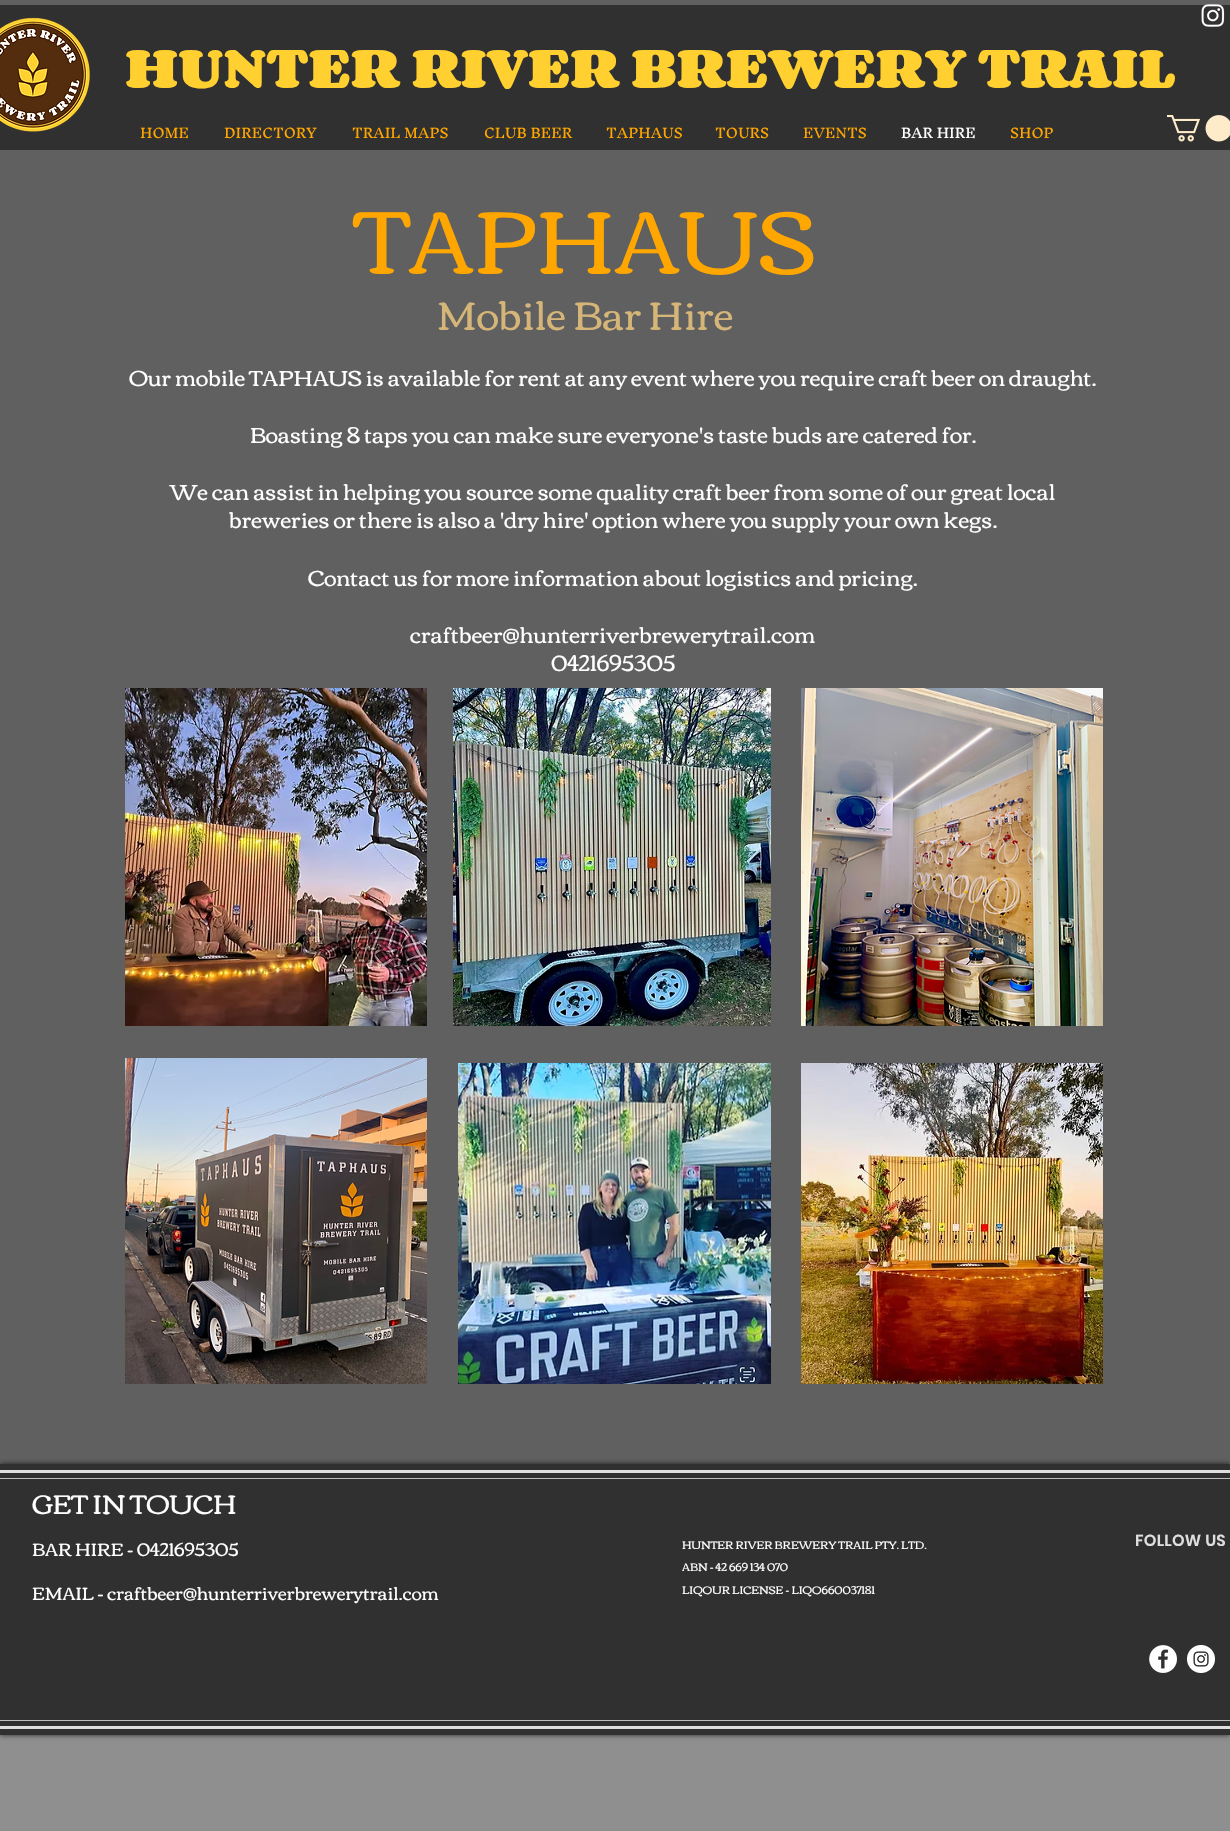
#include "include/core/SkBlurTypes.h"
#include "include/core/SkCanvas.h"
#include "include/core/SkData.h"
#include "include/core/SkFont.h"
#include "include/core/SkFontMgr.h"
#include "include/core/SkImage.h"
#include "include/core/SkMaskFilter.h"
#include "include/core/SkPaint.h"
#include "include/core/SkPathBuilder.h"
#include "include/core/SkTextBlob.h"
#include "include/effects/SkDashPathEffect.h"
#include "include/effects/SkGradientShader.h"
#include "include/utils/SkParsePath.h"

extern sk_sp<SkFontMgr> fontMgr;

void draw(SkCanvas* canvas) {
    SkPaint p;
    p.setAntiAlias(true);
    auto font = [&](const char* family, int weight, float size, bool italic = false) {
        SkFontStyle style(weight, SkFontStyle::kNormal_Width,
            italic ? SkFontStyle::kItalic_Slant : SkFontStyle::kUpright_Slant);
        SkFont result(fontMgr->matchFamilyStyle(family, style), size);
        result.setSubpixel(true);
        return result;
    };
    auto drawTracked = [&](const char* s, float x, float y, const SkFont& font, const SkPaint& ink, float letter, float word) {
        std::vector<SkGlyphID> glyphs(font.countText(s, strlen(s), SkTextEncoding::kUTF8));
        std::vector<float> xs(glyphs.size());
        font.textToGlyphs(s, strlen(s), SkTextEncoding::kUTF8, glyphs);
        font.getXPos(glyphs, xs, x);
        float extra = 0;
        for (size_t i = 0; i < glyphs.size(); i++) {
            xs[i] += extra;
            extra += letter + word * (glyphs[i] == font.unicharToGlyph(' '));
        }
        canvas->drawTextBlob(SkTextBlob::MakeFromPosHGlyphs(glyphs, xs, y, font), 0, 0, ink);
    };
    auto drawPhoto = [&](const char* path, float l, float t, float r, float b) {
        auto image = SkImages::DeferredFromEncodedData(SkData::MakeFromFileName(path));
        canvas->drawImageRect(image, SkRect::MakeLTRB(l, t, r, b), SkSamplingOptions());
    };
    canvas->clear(0xFF8F8F8F);
    p.setColor(0xFF303030);
    canvas->drawRect(SkRect::MakeLTRB(0, 5, 1230, 150), p);
    p.setColor(0xFF606060);
    canvas->drawRect(SkRect::MakeLTRB(0, 0, 1230, 5), p);
    drawPhoto("media/1.png", 0, 17, 90, 132);
    auto font1 = font("Corben", 700, 49);
    p.setColor(0xFFFFD02F);
    canvas->drawString("HUNTER RIVER BREWERY TRAIL", 125, 88, font1, p);
    drawPhoto("media/2.png", 1201, 4, 1225, 27);
    auto font2 = font("Inknut Antiqua", 400, 13);
    p.setColor(0xFFFFA600);
    {
        const struct { const char* s; float x, y; } items[] = {
            {"HOME", 140, 138},
            {"DIRECTORY", 224, 138},
            {"TRAIL MAPS", 352, 138},
            {"CLUB BEER", 484, 138},
            {"TAPHAUS", 606, 138},
            {"TOURS", 715, 138},
            {"EVENTS", 803, 138},
        };
        for (auto [s, x, y] : items) {
            canvas->drawString(s, x, y, font2, p);
        }
    }
    p.setColor(0xFFFFFFFF);
    canvas->drawString("BAR HIRE", 901, 138, font2, p);
    p.setColor(0xFFFFA600);
    canvas->drawString("SHOP", 1010, 138, font2, p);
    drawPhoto("media/3.png", 1167, 115, 1230, 142);
    p.setColor(0xFF606060);
    canvas->drawRect(SkRect::MakeLTRB(0, 150, 1230, 1464), p);
    auto font3 = font("Corben", 400, 90);
    p.setColor(0xFFFFA600);
    canvas->drawString("TAPHAUS", 355, 274, font3, p);
    auto font4 = font("Corben", 400, 40);
    p.setColor(0xFFD6B578);
    canvas->drawString("Mobile Bar Hire", 437, 330, font4, p);
    auto font5 = font("Corben", 400, 22);
    p.setColor(0xFFFFFFFF);
    {
        const struct { const char* s; float x, y; } items[] = {
            {"Our mobile TAPHAUS is available for rent at any event where you require craft beer on draught.", 129, 386},
            {"Boasting 8 taps you can make sure everyone's taste buds are catered for.", 250, 443},
            {"We can assist in helping you source some quality craft beer from some of our great local", 170, 500},
            {"breweries or there is also a 'dry hire' option where you supply your own kegs.", 229, 528},
            {"Contact us for more information about logistics and pricing.", 308, 586},
            {"craftbeer@hunterriverbrewerytrail.com", 410, 643},
            {"0421695305", 551, 671},
        };
        for (auto [s, x, y] : items) {
            canvas->drawString(s, x, y, font5, p);
        }
    }
    drawPhoto("media/4.png", 125, 688, 427, 1026);
    drawPhoto("media/5.png", 453, 688, 771, 1026);
    drawPhoto("media/6.png", 801, 688, 1103, 1026);
    drawPhoto("media/7.png", 125, 1058, 427, 1384);
    drawPhoto("media/8.png", 458, 1063, 771, 1384);
    drawPhoto("media/9.png", 801, 1063, 1103, 1384);
    p.setColor(0xB3000000);
    p.setMaskFilter(SkMaskFilter::MakeBlur(kNormal_SkBlurStyle, 2.5f));
    canvas->drawRect(SkRect::MakeLTRB(0, 1464, 1230, 1735), p);
    p.setMaskFilter(nullptr);
    {
        const struct { float l, t, r, b; SkColor color; } items[] = {
            {0, 1464, 1230, 1735, 0xFF303030},
            {0, 1470, 1230, 1473, 0xFFDFDFDF},
            {0, 1726, 1230, 1729, 0xFFDFDFDF},
            {0, 1478, 1230, 1479, 0xFFBFBFBF},
            {0, 1720, 1230, 1721, 0xFFBFBFBF},
        };
        for (auto [l, t, r, b, color] : items) {
            p.setColor(color);
            canvas->drawRect(SkRect::MakeLTRB(l, t, r, b), p);
        }
    }
    auto font6 = font("Corben", 400, 27);
    p.setColor(0xFFFFFFFF);
    canvas->drawString("GET IN TOUCH", 32, 1514, font6, p);
    auto font7 = font("Corben", 400, 18);
    canvas->drawString("BAR HIRE - 0421695305", 32, 1556, font7, p);
    canvas->drawString("EMAIL - craftbeer@hunterriverbrewerytrail.com", 32, 1600, font7, p);
    auto font8 = font("Corben", 400, 11);
    {
        const struct { const char* s; float x, y; } items[] = {
            {"HUNTER RIVER BREWERY TRAIL PTY. LTD.", 682, 1549},
            {"ABN - 42 669 134 070", 682, 1571},
            {"LIQOUR LICENSE - LIQO660037181", 682, 1594},
        };
        for (auto [s, x, y] : items) {
            canvas->drawString(s, x, y, font8, p);
        }
    }
    auto font9 = font("Poppins", 600, 16);
    p.setColor(0xFFDFDFDF);
    drawTracked("FOLLOW US", 1135, 1546, font9, p, 0.25f, 0);
    drawPhoto("media/10.png", 1149, 1645, 1177, 1673);
    drawPhoto("media/11.png", 1187, 1645, 1215, 1673);
}
